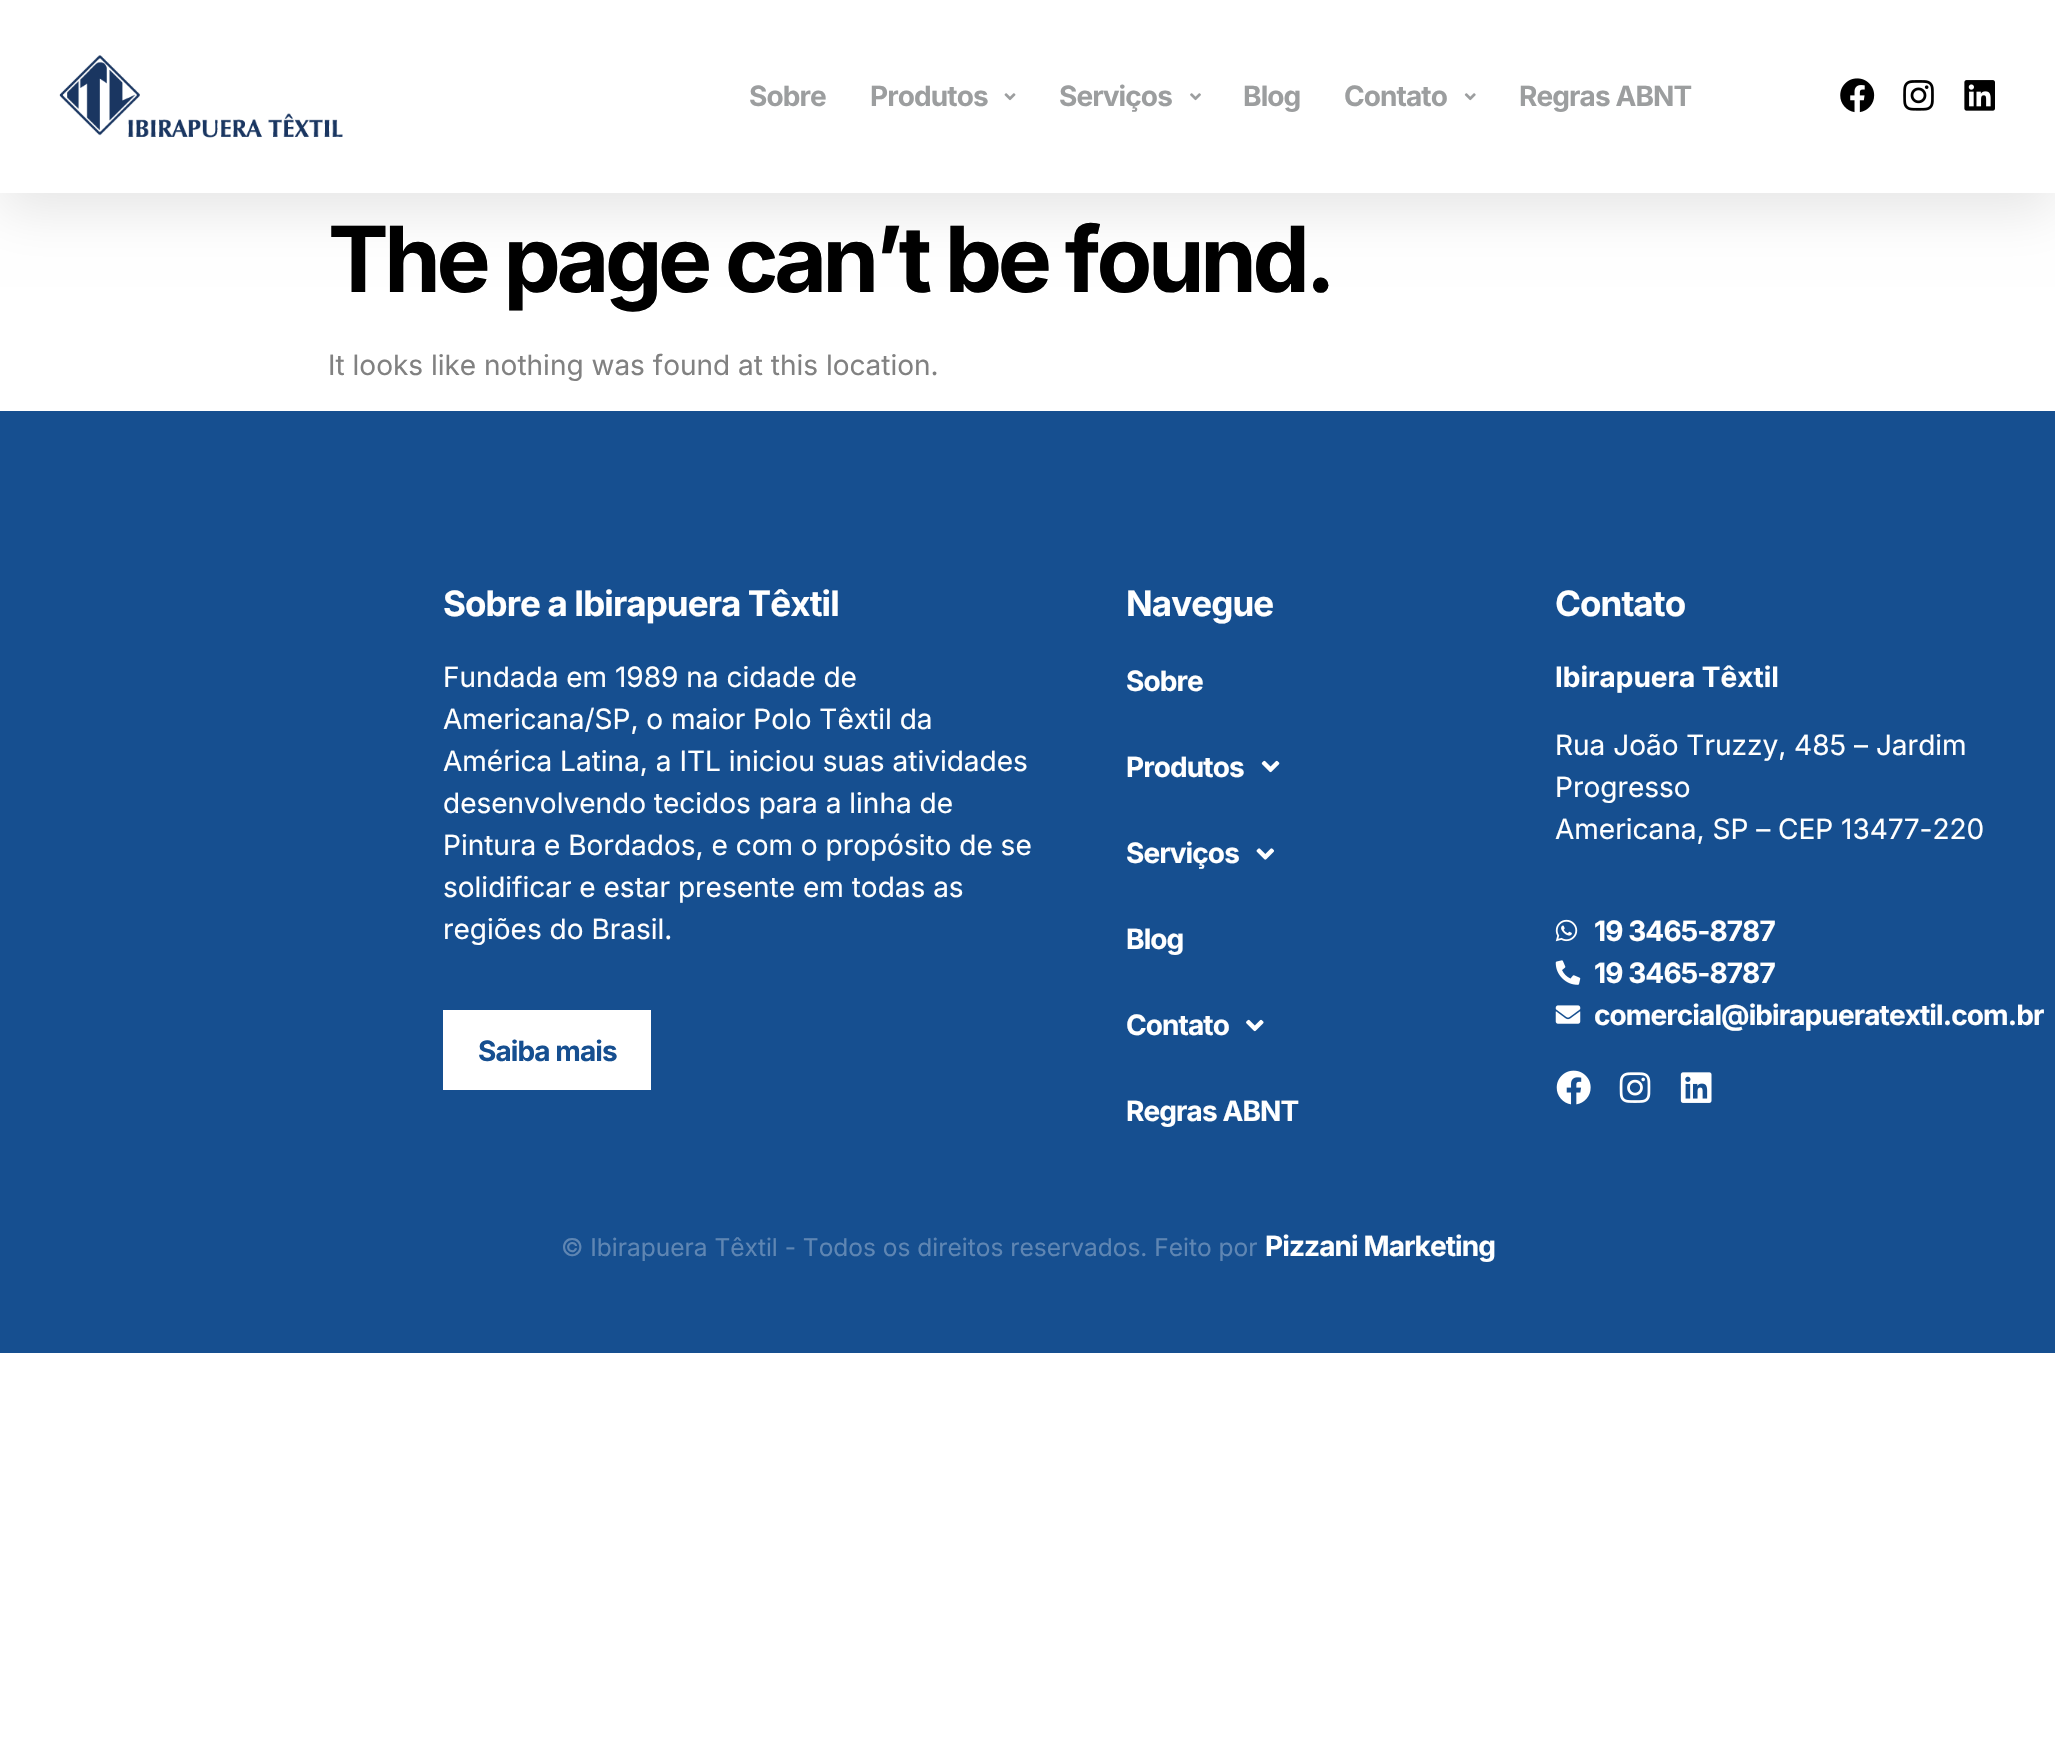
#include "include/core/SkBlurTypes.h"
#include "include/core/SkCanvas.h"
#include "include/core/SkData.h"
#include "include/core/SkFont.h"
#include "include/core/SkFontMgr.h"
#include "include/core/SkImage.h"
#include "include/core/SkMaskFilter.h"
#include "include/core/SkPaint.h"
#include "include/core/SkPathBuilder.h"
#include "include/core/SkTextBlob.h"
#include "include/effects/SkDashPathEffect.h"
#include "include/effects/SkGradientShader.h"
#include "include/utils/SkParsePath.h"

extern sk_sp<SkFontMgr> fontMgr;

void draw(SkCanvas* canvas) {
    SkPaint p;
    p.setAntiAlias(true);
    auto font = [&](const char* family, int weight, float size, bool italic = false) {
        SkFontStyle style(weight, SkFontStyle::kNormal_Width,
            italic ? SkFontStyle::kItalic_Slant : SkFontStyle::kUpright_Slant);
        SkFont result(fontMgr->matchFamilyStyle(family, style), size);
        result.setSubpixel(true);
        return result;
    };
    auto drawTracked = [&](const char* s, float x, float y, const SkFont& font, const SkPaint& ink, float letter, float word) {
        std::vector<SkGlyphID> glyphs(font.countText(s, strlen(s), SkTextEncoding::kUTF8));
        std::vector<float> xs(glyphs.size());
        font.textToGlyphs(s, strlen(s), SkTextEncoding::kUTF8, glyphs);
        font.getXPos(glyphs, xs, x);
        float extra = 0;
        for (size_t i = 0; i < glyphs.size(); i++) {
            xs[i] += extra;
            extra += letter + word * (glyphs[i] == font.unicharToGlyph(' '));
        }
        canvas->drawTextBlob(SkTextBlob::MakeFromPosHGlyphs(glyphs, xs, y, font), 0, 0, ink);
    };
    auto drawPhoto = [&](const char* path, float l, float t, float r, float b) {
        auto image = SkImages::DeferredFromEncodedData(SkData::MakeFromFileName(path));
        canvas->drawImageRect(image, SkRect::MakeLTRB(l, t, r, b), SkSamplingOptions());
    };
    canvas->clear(0xFFFFFFFF);
    p.setColor(0x1A000000);
    p.setMaskFilter(SkMaskFilter::MakeBlur(kNormal_SkBlurStyle, 26));
    canvas->drawRect(SkRect::MakeLTRB(0, 18, 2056, 210), p);
    p.setMaskFilter(nullptr);
    p.setColor(0xFFFFFFFF);
    canvas->drawRect(SkRect::MakeLTRB(0, 0, 2055, 193), p);
    drawPhoto("media/1.png", 59, 55, 343, 138);
    auto font1 = font("Inter", 700, 28);
    p.setColor(0xFF9C9E9F);
    drawTracked("Sobre", 749, 106, font1, p, -0.9f, 0);
    drawTracked("Produtos", 870, 106, font1, p, -0.9f, 0);
    drawPhoto("media/2.png", 1004, 93, 1016, 101);
    drawTracked("Serviços", 1059, 106, font1, p, -0.9f, 0);
    drawPhoto("media/3.png", 1190, 93, 1201, 101);
    drawTracked("Blog", 1243, 106, font1, p, -0.9f, 0);
    drawTracked("Contato", 1344, 106, font1, p, -0.9f, 0);
    drawPhoto("media/4.png", 1464, 93, 1476, 101);
    drawTracked("Regras ABNT", 1519, 106, font1, p, -0.9f, 0);
    drawPhoto("media/5.png", 1840, 78, 1875, 113);
    drawPhoto("media/6.png", 1903, 80, 1934, 111);
    drawPhoto("media/7.png", 1964, 80, 1995, 111);
    auto font2 = font("Inter", 700, 91);
    p.setColor(0xFF000000);
    drawTracked("The page can’t be found.", 328, 292, font2, p, -4.4f, 0);
    auto font3 = font("Inter", 400, 28);
    p.setColor(0xFF818181);
    canvas->drawString("It looks like nothing was found at this location.", 328, 375, font3, p);
    p.setColor(0xFF164F90);
    canvas->drawRect(SkRect::MakeLTRB(0, 411, 2055, 1353), p);
    auto font4 = font("Inter", 700, 35);
    p.setColor(0xFFFFFFFF);
    drawTracked("Sobre a Ibirapuera Têxtil", 443, 616, font4, p, -0.9f, 0);
    {
        const struct { const char* s; float x, y; } items[] = {
            {"Fundada em 1989 na cidade de", 443, 687},
            {"Americana/SP, o maior Polo Têxtil da", 443, 729},
            {"América Latina, a ITL iniciou suas atividades", 443, 771},
            {"desenvolvendo tecidos para a linha de", 443, 813},
            {"Pintura e Bordados, e com o propósito de se", 443, 855},
            {"solidificar e estar presente em todas as", 443, 897},
            {"regiões do Brasil.", 443, 939},
        };
        for (auto [s, x, y] : items) {
            canvas->drawString(s, x, y, font3, p);
        }
    }
    canvas->drawRect(SkRect::MakeLTRB(443, 1010, 651, 1090), p);
    p.setColor(0xFF164F90);
    drawTracked("Saiba mais", 478, 1061, font1, p, -0.9f, 0);
    p.setColor(0xFFFFFFFF);
    drawTracked("Navegue", 1126, 616, font4, p, -0.9f, 0);
    drawTracked("Sobre", 1126, 691, font1, p, -0.9f, 0);
    drawTracked("Produtos", 1126, 777, font1, p, -0.9f, 0);
    drawPhoto("media/8.png", 1261, 760, 1280, 773);
    drawTracked("Serviços", 1126, 863, font1, p, -0.9f, 0);
    drawPhoto("media/9.png", 1256, 848, 1274, 860);
    drawTracked("Blog", 1126, 949, font1, p, -0.9f, 0);
    drawTracked("Contato", 1126, 1035, font1, p, -0.9f, 0);
    drawPhoto("media/10.png", 1246, 1019, 1264, 1032);
    drawTracked("Regras ABNT", 1126, 1121, font1, p, -0.9f, 0);
    drawTracked("Contato", 1555, 616, font4, p, -0.9f, 0);
    canvas->drawString("Ibirapuera Têxtil", 1555, 687, font1, p);
    {
        const struct { const char* s; float x, y; } items[] = {
            {"Rua João Truzzy, 485 – Jardim", 1555, 755},
            {"Progresso", 1555, 797},
            {"Americana, SP – CEP 13477-220", 1555, 839},
        };
        for (auto [s, x, y] : items) {
            canvas->drawString(s, x, y, font3, p);
        }
    }
    drawPhoto("media/11.png", 1555, 919, 1578, 942);
    drawTracked("19 3465-8787", 1594, 941, font1, p, -0.9f, 0);
    drawPhoto("media/12.png", 1555, 960, 1581, 985);
    drawTracked("19 3465-8787", 1594, 983, font1, p, -0.9f, 0);
    drawPhoto("media/13.png", 1555, 1005, 1581, 1024);
    drawTracked("comercial@ibirapueratextil.com.br", 1594, 1025, font1, p, -0.9f, 0);
    drawPhoto("media/14.png", 1556, 1070, 1591, 1105);
    drawPhoto("media/15.png", 1619, 1072, 1651, 1103);
    drawPhoto("media/16.png", 1680, 1072, 1712, 1103);
    auto font5 = font("Inter", 400, 24.5f);
    p.setColor(0xFF5F86B3);
    canvas->drawString("© Ibirapuera Têxtil - Todos os direitos reservados. Feito por", 561, 1256, font5, p);
    p.setColor(0xFFFFFFFF);
    drawTracked("Pizzani Marketing", 1265, 1256, font1, p, -0.9f, 0);
}
